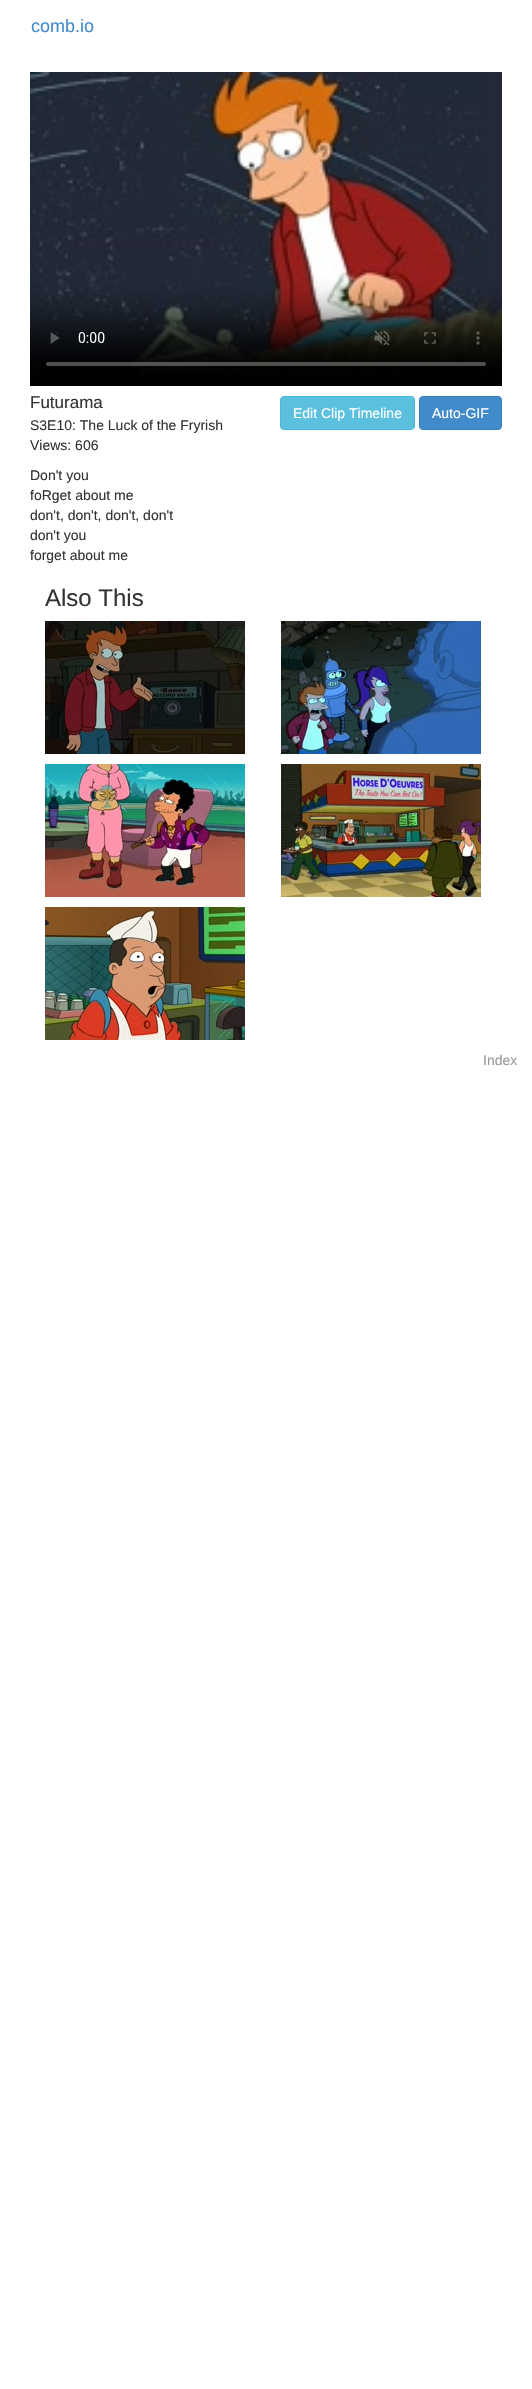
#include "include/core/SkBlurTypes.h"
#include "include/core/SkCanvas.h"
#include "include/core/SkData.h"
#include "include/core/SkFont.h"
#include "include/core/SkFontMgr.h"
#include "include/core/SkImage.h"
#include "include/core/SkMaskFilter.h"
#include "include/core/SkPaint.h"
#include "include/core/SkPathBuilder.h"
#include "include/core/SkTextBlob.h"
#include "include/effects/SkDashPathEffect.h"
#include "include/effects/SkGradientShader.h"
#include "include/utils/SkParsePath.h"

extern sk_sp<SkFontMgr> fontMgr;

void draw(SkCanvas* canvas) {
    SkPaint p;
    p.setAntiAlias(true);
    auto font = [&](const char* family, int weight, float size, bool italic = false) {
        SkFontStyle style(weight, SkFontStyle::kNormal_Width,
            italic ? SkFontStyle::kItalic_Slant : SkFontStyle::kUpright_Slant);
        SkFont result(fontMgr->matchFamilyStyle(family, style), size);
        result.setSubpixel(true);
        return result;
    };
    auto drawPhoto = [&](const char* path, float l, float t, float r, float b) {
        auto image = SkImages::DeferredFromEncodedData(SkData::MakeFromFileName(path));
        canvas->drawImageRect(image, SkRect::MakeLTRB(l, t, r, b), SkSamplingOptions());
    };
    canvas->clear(0xFFFFFFFF);
    auto font1 = font("Liberation Sans", 400, 18);
    p.setColor(0xFF428BCA);
    canvas->drawString("comb.io", 31, 32, font1, p);
    drawPhoto("media/1.png", 30, 72, 502, 386);
    auto font2 = font("Liberation Sans", 400, 17);
    p.setColor(0xFF333333);
    canvas->drawString("Futurama", 30, 408, font2, p);
    auto font3 = font("Liberation Sans", 400, 14);
    {
        const struct { const char* s; float x, y; } items[] = {
            {"S3E10: The Luck of the Fryrish", 30, 430},
            {"Views: 606", 30, 450},
            {"Don't you", 30, 480},
            {"foRget about me", 30, 500},
            {"don't, don't, don't, don't", 30, 520},
            {"don't you", 30, 540},
            {"forget about me", 30, 560},
        };
        for (auto [s, x, y] : items) {
            canvas->drawString(s, x, y, font3, p);
        }
    }
    p.setColor(0xFF5BC0DE);
    canvas->drawRoundRect(SkRect::MakeLTRB(280.5f, 396.5f, 414.5f, 429.5f), 3.5f, 3.5f, p);
    p.setStyle(SkPaint::kStroke_Style);
    p.setStrokeWidth(1);
    p.setColor(0xFF46B8DA);
    canvas->drawRoundRect(SkRect::MakeLTRB(280.5f, 396.5f, 414.5f, 429.5f), 3.5f, 3.5f, p);
    p.setStyle(SkPaint::kFill_Style);
    p.setColor(0xFFFFFFFF);
    canvas->drawString("Edit Clip Timeline", 293, 418, font3, p);
    p.setColor(0xFF428BCA);
    canvas->drawRoundRect(SkRect::MakeLTRB(419.5f, 396.5f, 501.5f, 429.5f), 3.5f, 3.5f, p);
    p.setStyle(SkPaint::kStroke_Style);
    p.setColor(0xFF357EBD);
    canvas->drawRoundRect(SkRect::MakeLTRB(419.5f, 396.5f, 501.5f, 429.5f), 3.5f, 3.5f, p);
    p.setStyle(SkPaint::kFill_Style);
    p.setColor(0xFFFFFFFF);
    canvas->drawString("Auto-GIF", 432, 418, font3, p);
    auto font4 = font("Liberation Sans", 400, 24);
    p.setColor(0xFF333333);
    canvas->drawString("Also This", 45, 606, font4, p);
    drawPhoto("media/2.png", 45, 621, 245, 754);
    drawPhoto("media/3.png", 281, 621, 481, 754);
    drawPhoto("media/4.png", 45, 764, 245, 897);
    drawPhoto("media/5.png", 281, 764, 481, 897);
    drawPhoto("media/6.png", 45, 907, 245, 1040);
    p.setColor(0xFF999999);
    canvas->drawString("Index", 483, 1065, font3, p);
}
